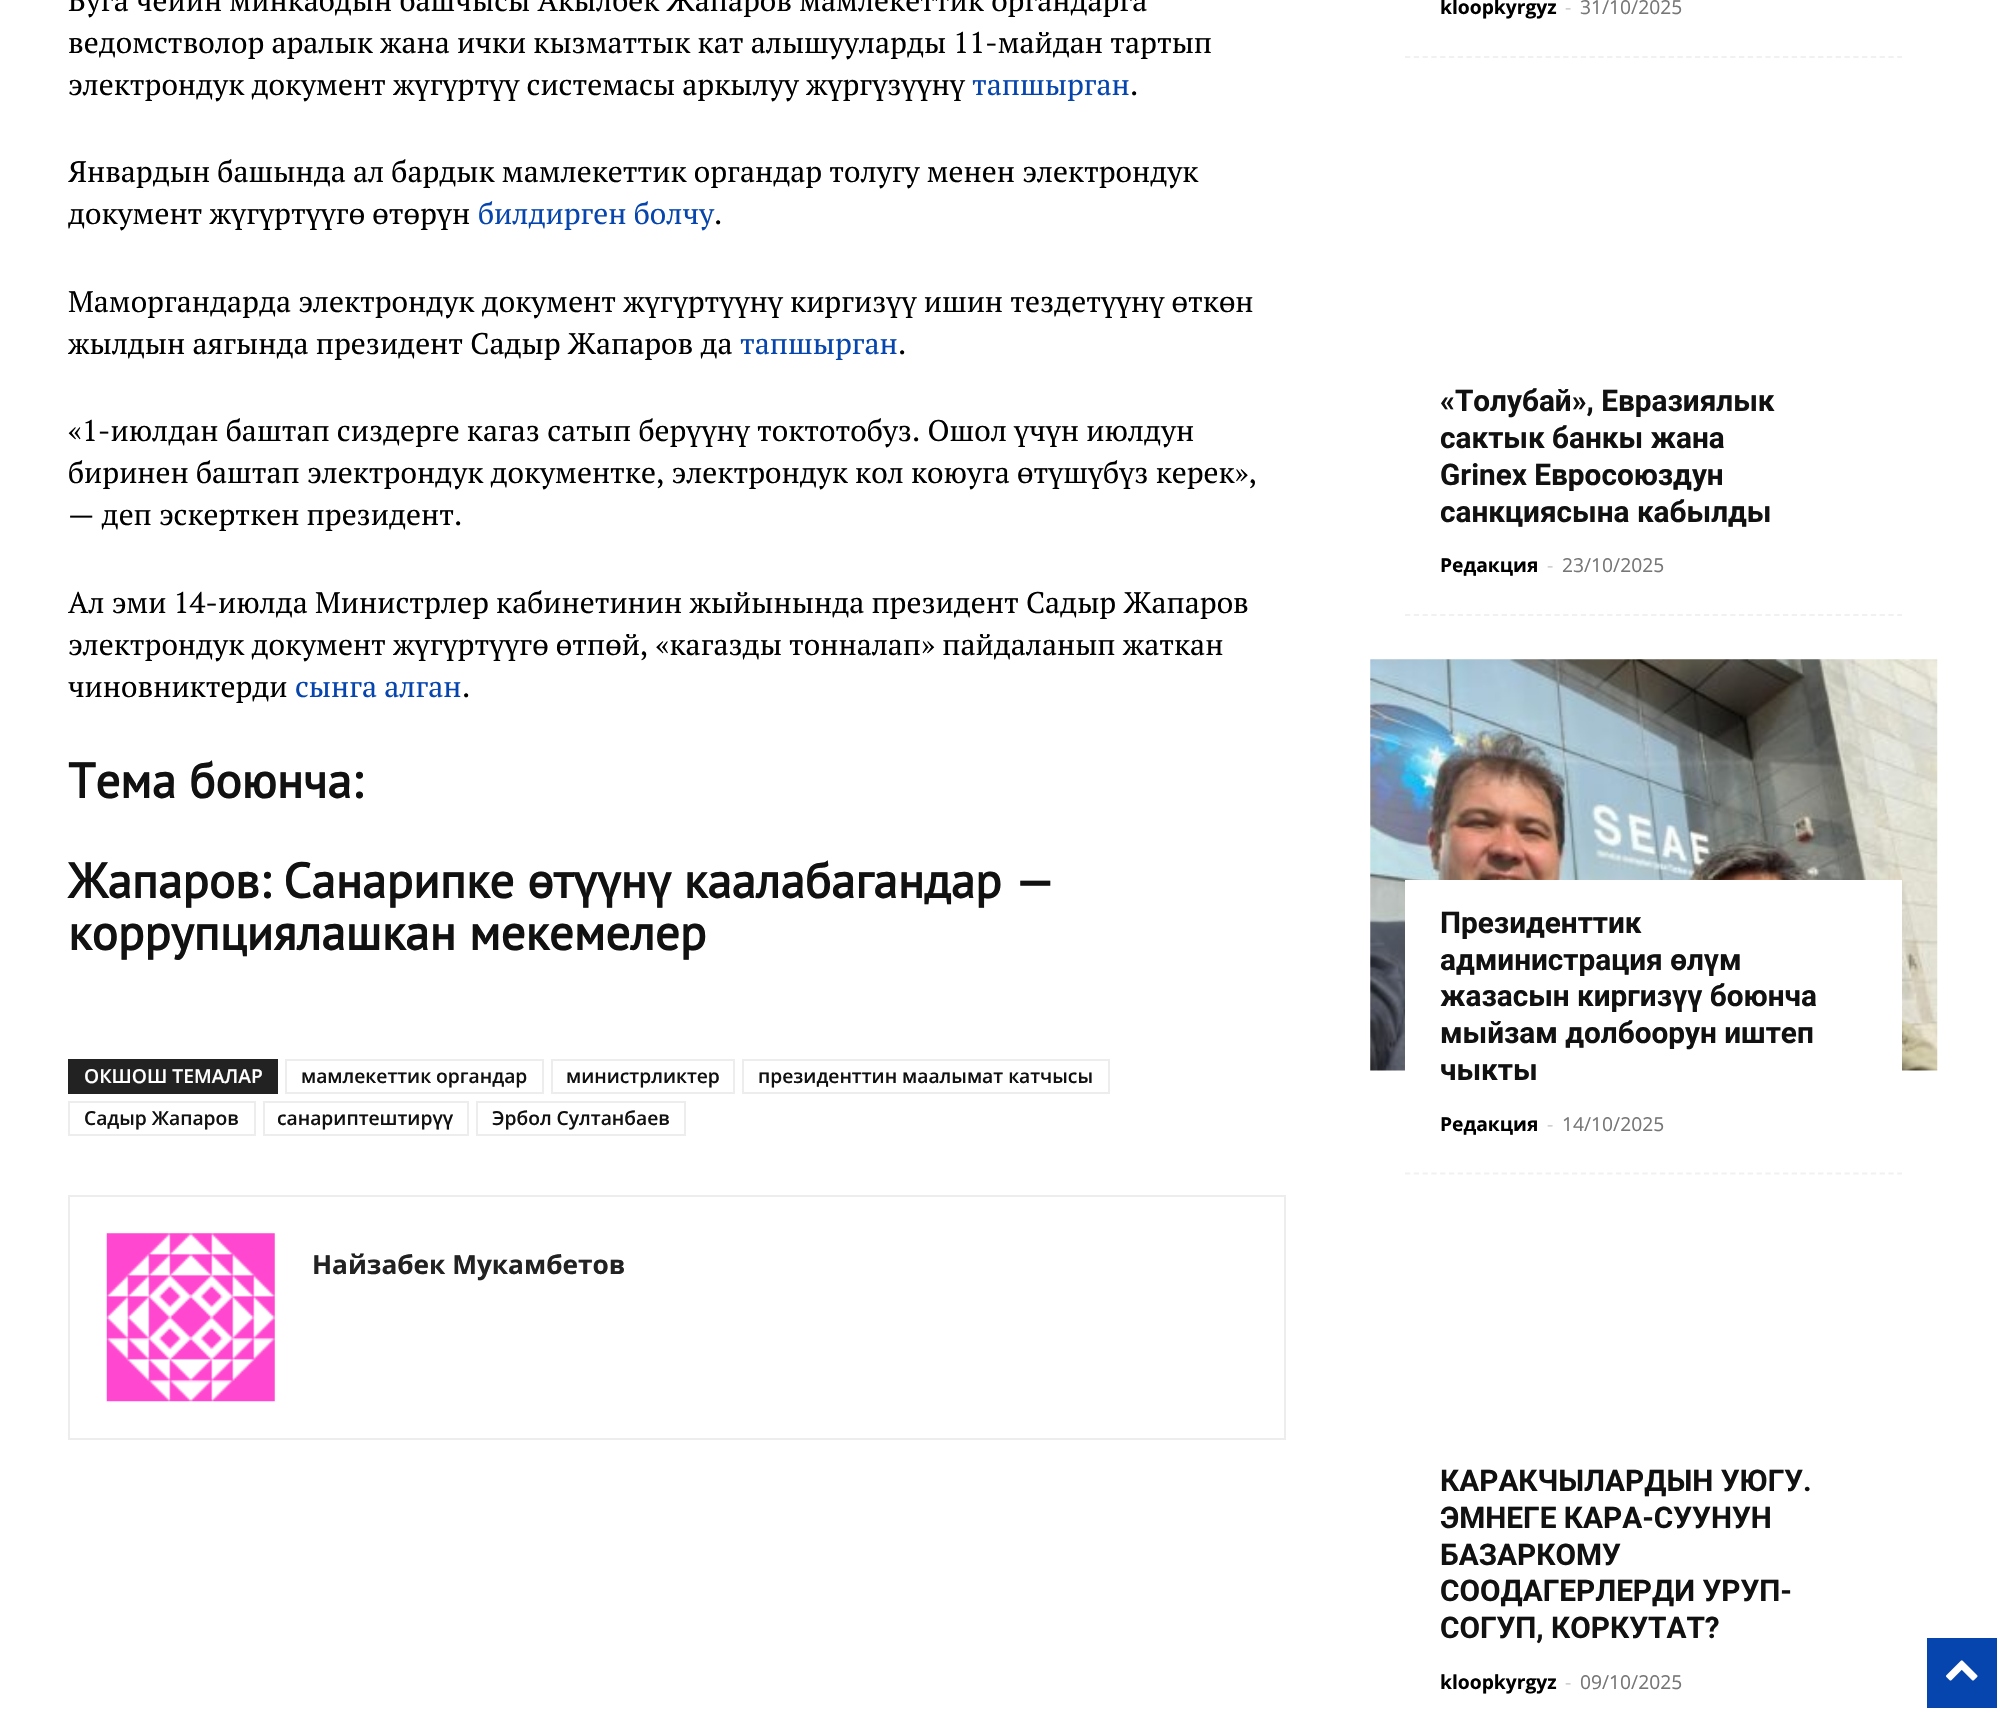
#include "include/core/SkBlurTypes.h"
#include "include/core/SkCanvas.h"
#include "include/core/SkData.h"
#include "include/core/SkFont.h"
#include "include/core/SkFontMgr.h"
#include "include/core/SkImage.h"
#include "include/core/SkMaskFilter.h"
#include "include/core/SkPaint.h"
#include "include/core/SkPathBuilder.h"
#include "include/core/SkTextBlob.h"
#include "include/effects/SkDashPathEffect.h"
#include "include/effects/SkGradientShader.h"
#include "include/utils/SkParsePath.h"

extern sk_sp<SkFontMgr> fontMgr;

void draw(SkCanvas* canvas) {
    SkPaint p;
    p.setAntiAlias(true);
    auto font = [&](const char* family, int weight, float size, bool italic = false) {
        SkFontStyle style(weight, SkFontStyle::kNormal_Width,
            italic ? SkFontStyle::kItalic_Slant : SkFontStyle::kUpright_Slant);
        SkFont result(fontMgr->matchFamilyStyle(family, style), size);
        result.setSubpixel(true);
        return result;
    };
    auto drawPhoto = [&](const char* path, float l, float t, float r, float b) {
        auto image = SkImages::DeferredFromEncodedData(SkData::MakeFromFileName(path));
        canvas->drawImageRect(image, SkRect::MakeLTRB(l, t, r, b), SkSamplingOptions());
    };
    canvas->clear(0xFFFFFFFF);
    auto font1 = font("PT Serif", 400, 29.75f);
    p.setColor(0xFF000000);
    {
        const struct { const char* s; float x, y; } items[] = {
            {"Буга чейин минкабдын башчысы Акылбек Жапаров мамлекеттик органдарга", 68, 11},
            {"ведомстволор аралык жана ички кызматтык кат алышууларды 11-майдан тартып", 68, 53},
            {"электрондук документ жүгүртүү системасы аркылуу жүргүзүүнү", 68, 95},
        };
        for (auto [s, x, y] : items) {
            canvas->drawString(s, x, y, font1, p);
        }
    }
    p.setColor(0xFF0645AD);
    canvas->drawString("тапшырган", 972, 95, font1, p);
    p.setColor(0xFF000000);
    {
        const struct { const char* s; float x, y; } items[] = {
            {".", 1130, 95},
            {"Январдын башында ал бардык мамлекеттик органдар толугу менен электрондук", 68, 182},
            {"документ жүгүртүүгө өтөрүн", 68, 224},
        };
        for (auto [s, x, y] : items) {
            canvas->drawString(s, x, y, font1, p);
        }
    }
    p.setColor(0xFF0645AD);
    canvas->drawString("билдирген болчу", 478, 224, font1, p);
    p.setColor(0xFF000000);
    {
        const struct { const char* s; float x, y; } items[] = {
            {".", 714, 224},
            {"Маморгандарда электрондук документ жүгүртүүнү киргизүү ишин тездетүүнү өткөн", 68, 312},
            {"жылдын аягында президент Садыр Жапаров да", 68, 354},
        };
        for (auto [s, x, y] : items) {
            canvas->drawString(s, x, y, font1, p);
        }
    }
    p.setColor(0xFF0645AD);
    canvas->drawString("тапшырган", 740, 354, font1, p);
    p.setColor(0xFF000000);
    {
        const struct { const char* s; float x, y; } items[] = {
            {".", 898, 354},
            {"«1-июлдан баштап сиздерге кагаз сатып берүүнү токтотобуз. Ошол үчүн июлдун", 68, 441},
            {"биринен баштап электрондук документке, электрондук кол коюуга өтүшүбүз керек»,", 68, 483},
            {"— деп эскерткен президент.", 68, 525},
            {"Ал эми 14-июлда Министрлер кабинетинин жыйынында президент Садыр Жапаров", 68, 613},
            {"электрондук документ жүгүртүүгө өтпөй, «кагазды тонналап» пайдаланып жаткан", 68, 655},
            {"чиновниктерди", 68, 697},
        };
        for (auto [s, x, y] : items) {
            canvas->drawString(s, x, y, font1, p);
        }
    }
    p.setColor(0xFF0645AD);
    canvas->drawString("сынга алган", 295, 697, font1, p);
    p.setColor(0xFF000000);
    canvas->drawString(".", 462, 697, font1, p);
    auto font2 = font("PT Sans", 700, 49);
    p.setColor(0xFF111111);
    {
        const struct { const char* s; float x, y; } items[] = {
            {"Тема боюнча:", 68, 798},
            {"Жапаров: Санарипке өтүүнү каалабагандар —", 68, 898},
            {"коррупциялашкан мекемелер", 68, 950},
        };
        for (auto [s, x, y] : items) {
            canvas->drawString(s, x, y, font2, p);
        }
    }
    p.setColor(0xFF222222);
    canvas->drawRect(SkRect::MakeLTRB(68, 1059, 278, 1094), p);
    auto font3 = font("Open Sans", 600, 19.25f);
    p.setColor(0xFFFFFFFF);
    canvas->drawString("ОКШОШ ТЕМАЛАР", 84, 1083, font3, p);
    p.setStyle(SkPaint::kStroke_Style);
    p.setStrokeWidth(2);
    p.setColor(0xFFEDEDED);
    canvas->drawRect(SkRect::MakeLTRB(286, 1060, 543, 1093), p);
    p.setStyle(SkPaint::kFill_Style);
    p.setColor(0xFF111111);
    canvas->drawString("мамлекеттик органдар", 301, 1083, font3, p);
    p.setStyle(SkPaint::kStroke_Style);
    p.setColor(0xFFEDEDED);
    canvas->drawRect(SkRect::MakeLTRB(552, 1060, 734, 1093), p);
    p.setStyle(SkPaint::kFill_Style);
    p.setColor(0xFF111111);
    canvas->drawString("министрликтер", 566, 1083, font3, p);
    p.setStyle(SkPaint::kStroke_Style);
    p.setColor(0xFFEDEDED);
    canvas->drawRect(SkRect::MakeLTRB(743, 1060, 1109, 1093), p);
    p.setStyle(SkPaint::kFill_Style);
    p.setColor(0xFF111111);
    canvas->drawString("президенттин маалымат катчысы", 758, 1083, font3, p);
    p.setStyle(SkPaint::kStroke_Style);
    p.setColor(0xFFEDEDED);
    canvas->drawRect(SkRect::MakeLTRB(69, 1102, 255, 1135), p);
    p.setStyle(SkPaint::kFill_Style);
    p.setColor(0xFF111111);
    canvas->drawString("Садыр Жапаров", 84, 1125, font3, p);
    p.setStyle(SkPaint::kStroke_Style);
    p.setColor(0xFFEDEDED);
    canvas->drawRect(SkRect::MakeLTRB(264, 1102, 468, 1135), p);
    p.setStyle(SkPaint::kFill_Style);
    p.setColor(0xFF111111);
    canvas->drawString("санариптештирүү", 277, 1125, font3, p);
    p.setStyle(SkPaint::kStroke_Style);
    p.setColor(0xFFEDEDED);
    canvas->drawRect(SkRect::MakeLTRB(477, 1102, 685, 1135), p);
    p.setStyle(SkPaint::kFill_Style);
    p.setColor(0xFF111111);
    canvas->drawString("Эрбол Султанбаев", 492, 1125, font3, p);
    p.setStyle(SkPaint::kStroke_Style);
    p.setColor(0xFFEDEDED);
    canvas->drawRect(SkRect::MakeLTRB(69, 1196, 1285, 1439), p);
    drawPhoto("media/1.png", 106, 1233, 275, 1402);
    auto font4 = font("Open Sans", 700, 26.25f);
    p.setStyle(SkPaint::kFill_Style);
    p.setColor(0xFF222222);
    canvas->drawString("Найзабек Мукамбетов", 312, 1274, font4, p);
    p.setStyle(SkPaint::kStroke_Style);
    p.setStrokeWidth(1.8f);
    p.setColor(0xFFF1F1F1);
    p.setPathEffect(SkDashPathEffect::Make({{5.25f, 3.54f}}, 0));
    canvas->drawPath(SkPathBuilder().moveTo(1405, 57).lineTo(1902, 57).detach(), p);
    p.setPathEffect(nullptr);
    auto font5 = font("Open Sans", 700, 19.25f);
    p.setStyle(SkPaint::kFill_Style);
    p.setColor(0xFF000000);
    canvas->drawString("kloopkyrgyz", 1440, 14, font5, p);
    auto font6 = font("Open Sans", 400, 19.25f);
    p.setColor(0xFFCCCCCC);
    canvas->drawString("-", 1565, 14, font6, p);
    p.setColor(0xFF767676);
    canvas->drawString("31/10/2025", 1580, 14, font6, p);
    p.setStyle(SkPaint::kStroke_Style);
    p.setColor(0xFFF1F1F1);
    p.setPathEffect(SkDashPathEffect::Make({{5.25f, 3.54f}}, 0));
    canvas->drawPath(SkPathBuilder().moveTo(1405, 615).lineTo(1902, 615).detach(), p);
    p.setPathEffect(nullptr);
    auto font7 = font("Roboto", 700, 29.75f);
    p.setStyle(SkPaint::kFill_Style);
    p.setColor(0xFF111111);
    {
        const struct { const char* s; float x, y; } items[] = {
            {"«Толубай», Евразиялык", 1440, 411},
            {"сактык банкы жана", 1440, 448},
            {"Grinex Евросоюздун", 1440, 485},
            {"санкциясына кабылды", 1440, 522},
        };
        for (auto [s, x, y] : items) {
            canvas->drawString(s, x, y, font7, p);
        }
    }
    p.setColor(0xFF000000);
    canvas->drawString("Редакция", 1440, 572, font5, p);
    p.setColor(0xFFCCCCCC);
    canvas->drawString("-", 1547, 572, font6, p);
    p.setColor(0xFF767676);
    canvas->drawString("23/10/2025", 1562, 572, font6, p);
    drawPhoto("media/2.png", 1370, 659, 1938, 1071);
    p.setColor(0xFFFFFFFF);
    canvas->drawRect(SkRect::MakeLTRB(1405, 880, 1902, 1071), p);
    p.setStyle(SkPaint::kStroke_Style);
    p.setColor(0xFFF1F1F1);
    p.setPathEffect(SkDashPathEffect::Make({{5.25f, 3.54f}}, 0));
    canvas->drawPath(SkPathBuilder().moveTo(1405, 1173.5f).lineTo(1902, 1173.5f).detach(), p);
    p.setPathEffect(nullptr);
    p.setStyle(SkPaint::kFill_Style);
    p.setColor(0xFF111111);
    {
        const struct { const char* s; float x, y; } items[] = {
            {"Президенттик", 1440, 933},
            {"администрация өлүм", 1440, 970},
            {"жазасын киргизүү боюнча", 1440, 1006},
            {"мыйзам долбоорун иштеп", 1440, 1043},
            {"чыкты", 1440, 1080},
        };
        for (auto [s, x, y] : items) {
            canvas->drawString(s, x, y, font7, p);
        }
    }
    p.setColor(0xFF000000);
    canvas->drawString("Редакция", 1440, 1131, font5, p);
    p.setColor(0xFFCCCCCC);
    canvas->drawString("-", 1547, 1131, font6, p);
    p.setColor(0xFF767676);
    canvas->drawString("14/10/2025", 1562, 1131, font6, p);
    p.setColor(0xFF111111);
    {
        const struct { const char* s; float x, y; } items[] = {
            {"КАРАКЧЫЛАРДЫН УЮГУ.", 1440, 1491},
            {"ЭМНЕГЕ КАРА-СУУНУН", 1440, 1528},
            {"БАЗАРКОМУ", 1440, 1565},
            {"СООДАГЕРЛЕРДИ УРУП-", 1440, 1601},
            {"СОГУП, КОРКУТАТ?", 1440, 1638},
        };
        for (auto [s, x, y] : items) {
            canvas->drawString(s, x, y, font7, p);
        }
    }
    p.setColor(0xFF000000);
    canvas->drawString("kloopkyrgyz", 1440, 1689, font5, p);
    p.setColor(0xFFCCCCCC);
    canvas->drawString("-", 1565, 1689, font6, p);
    p.setColor(0xFF767676);
    canvas->drawString("09/10/2025", 1580, 1689, font6, p);
    p.setColor(0xFF0645AD);
    canvas->drawRect(SkRect::MakeLTRB(1927, 1638, 1997, 1708), p);
    drawPhoto("media/3.png", 1946, 1660, 1978, 1681);
}
